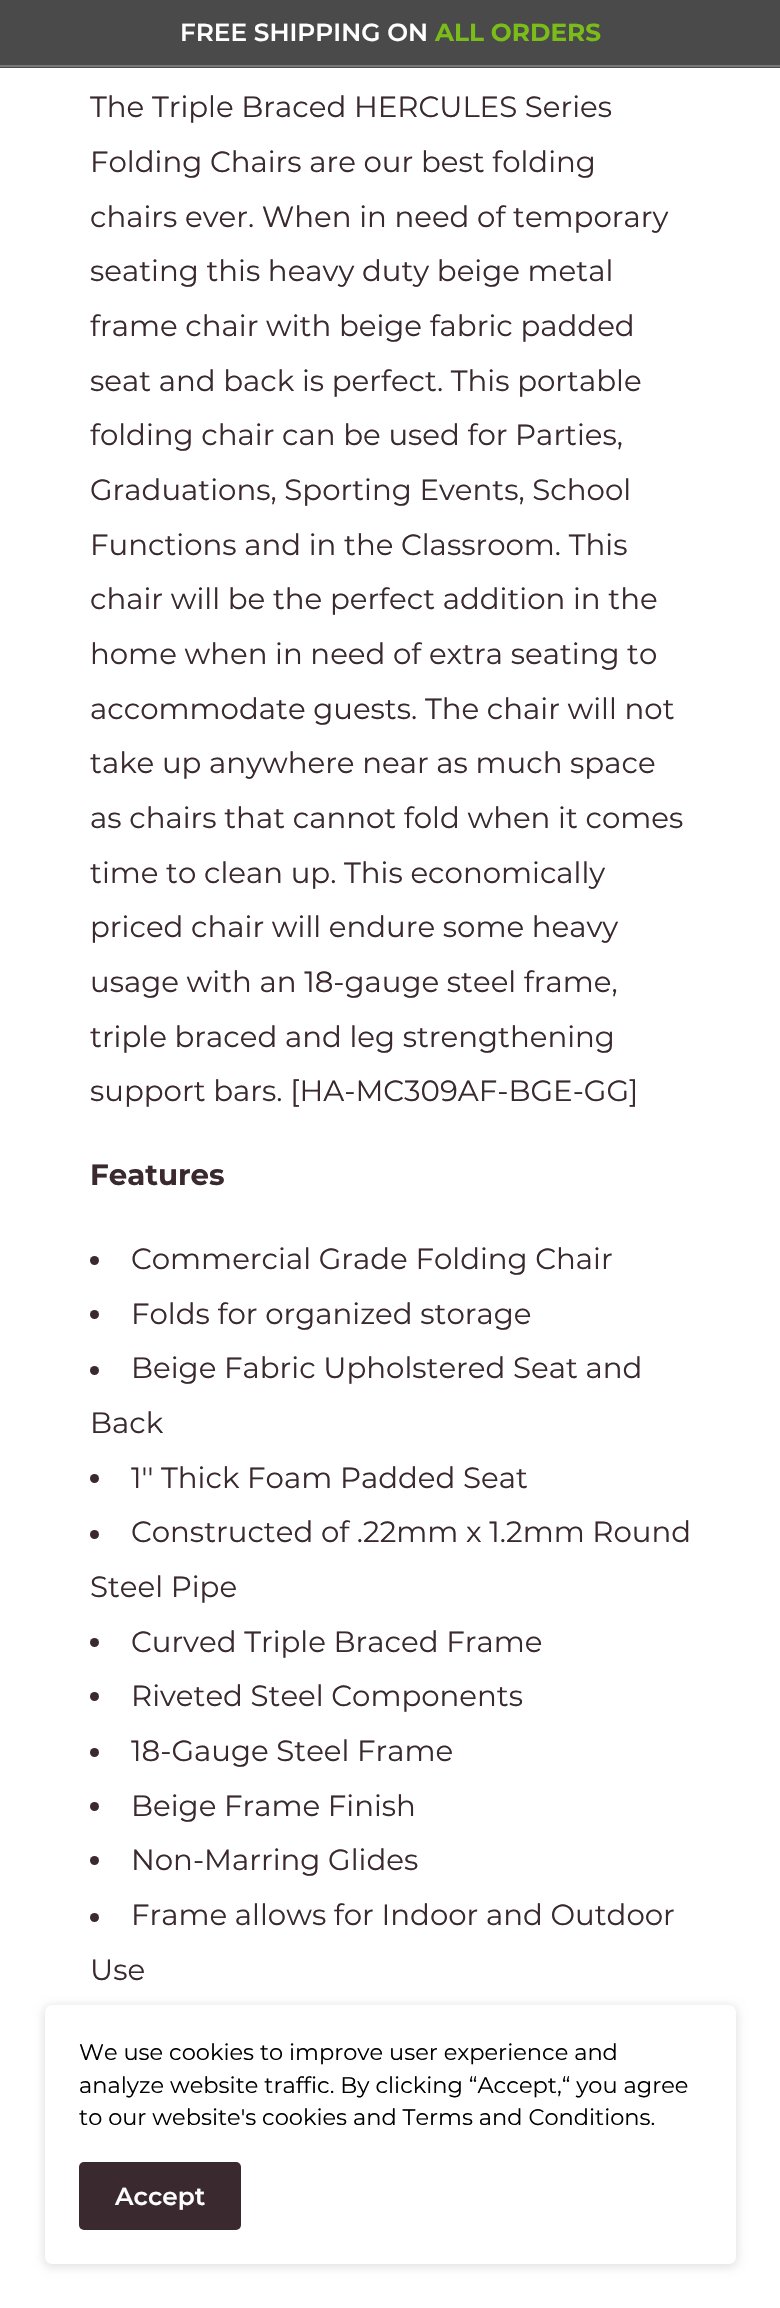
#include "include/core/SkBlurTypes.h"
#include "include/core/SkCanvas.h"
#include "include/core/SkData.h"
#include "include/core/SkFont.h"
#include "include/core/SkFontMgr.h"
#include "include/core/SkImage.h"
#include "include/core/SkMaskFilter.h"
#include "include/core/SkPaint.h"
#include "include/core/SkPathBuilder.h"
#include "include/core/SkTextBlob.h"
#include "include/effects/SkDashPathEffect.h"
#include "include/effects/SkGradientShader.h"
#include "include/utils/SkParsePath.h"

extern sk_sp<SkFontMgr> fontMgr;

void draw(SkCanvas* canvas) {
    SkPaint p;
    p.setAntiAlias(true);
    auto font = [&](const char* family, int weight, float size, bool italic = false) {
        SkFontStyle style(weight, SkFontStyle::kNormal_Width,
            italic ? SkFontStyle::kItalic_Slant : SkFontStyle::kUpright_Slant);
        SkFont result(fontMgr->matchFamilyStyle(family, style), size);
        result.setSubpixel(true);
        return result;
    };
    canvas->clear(0xFFFFFFFF);
    p.setColor(0xFF4A4A4A);
    canvas->drawRect(SkRect::MakeLTRB(0, 0, 780, 68), p);
    p.setColor(0xFF7A7876);
    canvas->drawRect(SkRect::MakeLTRB(0, 65, 780, 67), p);
    auto font1 = font("Montserrat", 600, 24.75f);
    p.setColor(0xFFFFFFFF);
    canvas->drawString("FREE SHIPPING ON", 180, 41, font1, p);
    auto font2 = font("Montserrat", 700, 24.75f);
    p.setColor(0xFF7BBD18);
    canvas->drawString("ALL ORDERS", 435, 41, font2, p);
    auto font3 = font("Montserrat", 400, 29.25f);
    p.setColor(0xFF3A2A2F);
    {
        const struct { const char* s; float x, y; } items[] = {
            {"The Triple Braced HERCULES Series", 90, 117},
            {"Folding Chairs are our best folding", 90, 172},
            {"chairs ever. When in need of temporary", 90, 227},
            {"seating this heavy duty beige metal", 90, 281},
            {"frame chair with beige fabric padded", 90, 336},
            {"seat and back is perfect. This portable", 90, 391},
            {"folding chair can be used for Parties,", 90, 445},
            {"Graduations, Sporting Events, School", 90, 500},
            {"Functions and in the Classroom. This", 90, 555},
            {"chair will be the perfect addition in the", 90, 609},
            {"home when in need of extra seating to", 90, 664},
            {"accommodate guests. The chair will not", 90, 719},
            {"take up anywhere near as much space", 90, 773},
            {"as chairs that cannot fold when it comes", 90, 828},
            {"time to clean up. This economically", 90, 883},
            {"priced chair will endure some heavy", 90, 937},
            {"usage with an 18-gauge steel frame,", 90, 992},
            {"triple braced and leg strengthening", 90, 1047},
            {"support bars. [HA-MC309AF-BGE-GG]", 90, 1101},
        };
        for (auto [s, x, y] : items) {
            canvas->drawString(s, x, y, font3, p);
        }
    }
    auto font4 = font("Montserrat", 700, 29.25f);
    canvas->drawString("Features", 90, 1185, font4, p);
    canvas->drawCircle(94.5f, 1260.5f, 4.5f, p);
    canvas->drawString("Commercial Grade Folding Chair", 131, 1269, font3, p);
    canvas->drawCircle(94.5f, 1314.5f, 4.5f, p);
    canvas->drawString("Folds for organized storage", 131, 1324, font3, p);
    canvas->drawCircle(94.5f, 1370.5f, 4.5f, p);
    canvas->drawString("Beige Fabric Upholstered Seat and", 131, 1378, font3, p);
    canvas->drawString("Back", 90, 1433, font3, p);
    canvas->drawCircle(94.5f, 1478.5f, 4.5f, p);
    canvas->drawString("1'' Thick Foam Padded Seat", 131, 1488, font3, p);
    canvas->drawCircle(94.5f, 1534.5f, 4.5f, p);
    canvas->drawString("Constructed of .22mm x 1.2mm Round", 131, 1542, font3, p);
    canvas->drawString("Steel Pipe", 90, 1597, font3, p);
    canvas->drawCircle(94.5f, 1642.5f, 4.5f, p);
    canvas->drawString("Curved Triple Braced Frame", 131, 1652, font3, p);
    canvas->drawCircle(94.5f, 1696.5f, 4.5f, p);
    canvas->drawString("Riveted Steel Components", 131, 1706, font3, p);
    canvas->drawCircle(94.5f, 1752.5f, 4.5f, p);
    canvas->drawString("18-Gauge Steel Frame", 131, 1761, font3, p);
    canvas->drawCircle(94.5f, 1806.5f, 4.5f, p);
    canvas->drawString("Beige Frame Finish", 131, 1816, font3, p);
    canvas->drawCircle(94.5f, 1860.5f, 4.5f, p);
    canvas->drawString("Non-Marring Glides", 131, 1870, font3, p);
    canvas->drawCircle(94.5f, 1917.5f, 4.5f, p);
    canvas->drawString("Frame allows for Indoor and Outdoor", 131, 1925, font3, p);
    canvas->drawString("Use", 90, 1980, font3, p);
    p.setColor(0x1A000000);
    p.setMaskFilter(SkMaskFilter::MakeBlur(kNormal_SkBlurStyle, 4.5f));
    canvas->drawRoundRect(SkRect::MakeLTRB(43, 2005, 738, 2268), 9, 9, p);
    p.setMaskFilter(nullptr);
    p.setColor(0xFFFFFFFF);
    canvas->drawRoundRect(SkRect::MakeLTRB(45, 2005, 736, 2264), 7, 7, p);
    auto font5 = font("Montserrat", 400, 22.5f);
    p.setColor(0xFF000000);
    {
        const struct { const char* s; float x, y; } items[] = {
            {"We use cookies to improve user experience and", 79, 2060},
            {"analyze website traffic. By clicking “Accept,“ you agree", 79, 2093},
            {"to our website's cookies and Terms and Conditions.", 79, 2125},
        };
        for (auto [s, x, y] : items) {
            canvas->drawString(s, x, y, font5, p);
        }
    }
    p.setColor(0xFF3A2A2F);
    canvas->drawRoundRect(SkRect::MakeLTRB(79, 2162, 241, 2230), 5, 5, p);
    p.setColor(0xFFFFFFFF);
    canvas->drawString("Accept", 115, 2205, font1, p);
}
